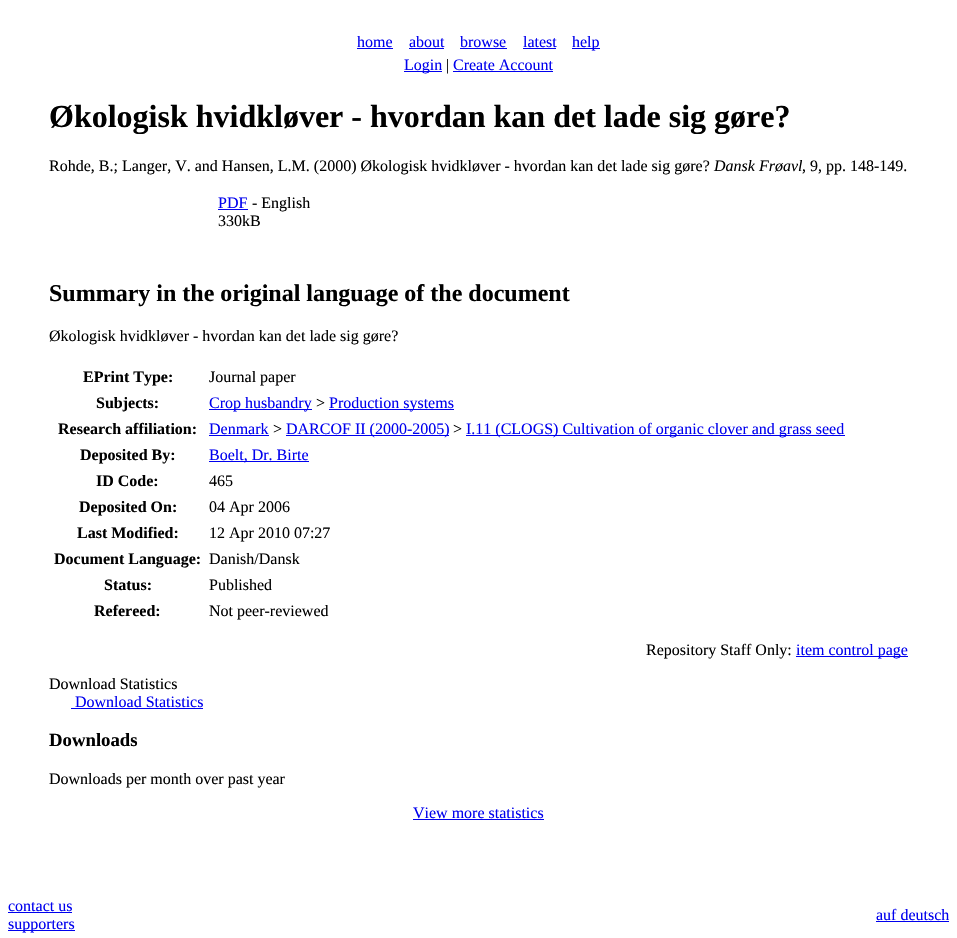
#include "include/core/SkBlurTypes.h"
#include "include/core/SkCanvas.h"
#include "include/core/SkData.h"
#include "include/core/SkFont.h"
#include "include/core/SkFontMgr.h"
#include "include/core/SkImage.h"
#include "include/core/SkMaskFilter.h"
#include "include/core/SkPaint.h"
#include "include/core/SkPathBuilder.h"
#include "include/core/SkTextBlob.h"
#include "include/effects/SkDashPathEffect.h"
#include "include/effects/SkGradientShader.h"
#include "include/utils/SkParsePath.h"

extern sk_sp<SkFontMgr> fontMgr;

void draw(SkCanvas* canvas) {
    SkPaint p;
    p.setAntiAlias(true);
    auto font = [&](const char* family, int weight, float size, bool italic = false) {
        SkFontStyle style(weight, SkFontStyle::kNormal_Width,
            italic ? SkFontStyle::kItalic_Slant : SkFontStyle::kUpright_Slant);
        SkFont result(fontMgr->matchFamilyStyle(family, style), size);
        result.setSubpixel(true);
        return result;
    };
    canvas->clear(0xFFFFFFFF);
    auto font1 = font("Liberation Serif", 400, 16);
    p.setColor(0xFF0000EE);
    canvas->drawString("home", 357, 47, font1, p);
    canvas->drawRect(SkRect::MakeLTRB(357, 48, 393, 49), p);
    canvas->drawString("about", 409, 47, font1, p);
    canvas->drawRect(SkRect::MakeLTRB(409, 48, 444, 49), p);
    canvas->drawString("browse", 460, 47, font1, p);
    canvas->drawRect(SkRect::MakeLTRB(460, 48, 507, 49), p);
    canvas->drawString("latest", 523, 47, font1, p);
    canvas->drawRect(SkRect::MakeLTRB(523, 48, 556, 49), p);
    canvas->drawRect(SkRect::MakeLTRB(572, 48, 600, 49), p);
    canvas->drawString("help", 572, 47, font1, p);
    canvas->drawRect(SkRect::MakeLTRB(404, 71, 442, 72), p);
    canvas->drawString("Login", 404, 70, font1, p);
    p.setColor(0xFF000000);
    canvas->drawString("|", 446, 70, font1, p);
    p.setColor(0xFF0000EE);
    canvas->drawString("Create Account", 453, 70, font1, p);
    canvas->drawRect(SkRect::MakeLTRB(453, 71, 553, 72), p);
    auto font2 = font("Liberation Serif", 700, 32);
    p.setColor(0xFF000000);
    canvas->drawString("Økologisk hvidkløver - hvordan kan det lade sig gøre?", 49, 127, font2, p);
    canvas->drawString("Rohde, B.; Langer, V. and Hansen, L.M. (2000) Økologisk hvidkløver - hvordan kan det lade sig gøre?", 49, 171, font1, p);
    auto font3 = font("Liberation Serif", 400, 16, true);
    canvas->drawString("Dansk Frøavl", 714, 171, font3, p);
    canvas->drawString(", 9, pp. 148-149.", 802, 171, font1, p);
    p.setColor(0xFF0000EE);
    canvas->drawString("PDF", 218, 208, font1, p);
    canvas->drawRect(SkRect::MakeLTRB(218, 209, 248, 210), p);
    p.setColor(0xFF000000);
    canvas->drawString("- English", 252, 208, font1, p);
    canvas->drawString("330kB", 218, 226, font1, p);
    auto font4 = font("Liberation Serif", 700, 24);
    canvas->drawString("Summary in the original language of the document", 49, 301, font4, p);
    canvas->drawString("Økologisk hvidkløver - hvordan kan det lade sig gøre?", 49, 341, font1, p);
    auto font5 = font("Liberation Serif", 700, 16);
    canvas->drawString("EPrint Type:", 83, 382, font5, p);
    canvas->drawString("Journal paper", 209, 382, font1, p);
    canvas->drawString("Subjects:", 96, 408, font5, p);
    p.setColor(0xFF0000EE);
    canvas->drawRect(SkRect::MakeLTRB(209, 409, 312, 410), p);
    canvas->drawString("Crop husbandry", 209, 408, font1, p);
    p.setColor(0xFF000000);
    canvas->drawString(">", 316, 408, font1, p);
    p.setColor(0xFF0000EE);
    canvas->drawRect(SkRect::MakeLTRB(329, 409, 454, 410), p);
    canvas->drawString("Production systems", 329, 408, font1, p);
    p.setColor(0xFF000000);
    canvas->drawString("Research affiliation:", 58, 434, font5, p);
    p.setColor(0xFF0000EE);
    canvas->drawString("Denmark", 209, 434, font1, p);
    canvas->drawRect(SkRect::MakeLTRB(209, 435, 269, 436), p);
    p.setColor(0xFF000000);
    canvas->drawString(">", 273, 434, font1, p);
    p.setColor(0xFF0000EE);
    canvas->drawRect(SkRect::MakeLTRB(286, 435, 449, 436), p);
    canvas->drawString("DARCOF II (2000-2005)", 286, 434, font1, p);
    p.setColor(0xFF000000);
    canvas->drawString(">", 453, 434, font1, p);
    p.setColor(0xFF0000EE);
    canvas->drawRect(SkRect::MakeLTRB(466, 435, 845, 436), p);
    canvas->drawString("I.11 (CLOGS) Cultivation of organic clover and grass seed", 466, 434, font1, p);
    p.setColor(0xFF000000);
    canvas->drawString("Deposited By:", 80, 460, font5, p);
    p.setColor(0xFF0000EE);
    canvas->drawRect(SkRect::MakeLTRB(209, 461, 309, 462), p);
    canvas->drawString("Boelt, Dr. Birte", 209, 460, font1, p);
    p.setColor(0xFF000000);
    canvas->drawString("ID Code:", 96, 486, font5, p);
    canvas->drawString("465", 209, 486, font1, p);
    canvas->drawString("Deposited On:", 79, 512, font5, p);
    canvas->drawString("04 Apr 2006", 209, 512, font1, p);
    canvas->drawString("Last Modified:", 77, 538, font5, p);
    canvas->drawString("12 Apr 2010 07:27", 209, 538, font1, p);
    canvas->drawString("Document Language:", 54, 564, font5, p);
    canvas->drawString("Danish/Dansk", 209, 564, font1, p);
    canvas->drawString("Status:", 104, 590, font5, p);
    canvas->drawString("Published", 209, 590, font1, p);
    canvas->drawString("Refereed:", 94, 616, font5, p);
    canvas->drawString("Not peer-reviewed", 209, 616, font1, p);
    canvas->drawString("Repository Staff Only:", 646, 655, font1, p);
    p.setColor(0xFF0000EE);
    canvas->drawRect(SkRect::MakeLTRB(796, 656, 908, 657), p);
    canvas->drawString("item control page", 796, 655, font1, p);
    p.setColor(0xFF000000);
    canvas->drawString("Download Statistics", 49, 689, font1, p);
    p.setColor(0xFF0000EE);
    canvas->drawString("Download Statistics", 75, 707, font1, p);
    canvas->drawRect(SkRect::MakeLTRB(71, 708, 203, 709), p);
    auto font6 = font("Liberation Serif", 700, 18.75f);
    p.setColor(0xFF000000);
    canvas->drawString("Downloads", 49, 746, font6, p);
    canvas->drawString("Downloads per month over past year", 49, 784, font1, p);
    p.setColor(0xFF0000EE);
    canvas->drawString("View more statistics", 413, 818, font1, p);
    canvas->drawRect(SkRect::MakeLTRB(413, 819, 544, 820), p);
    canvas->drawString("contact us", 8, 911, font1, p);
    canvas->drawRect(SkRect::MakeLTRB(8, 912, 72, 913), p);
    canvas->drawRect(SkRect::MakeLTRB(8, 930, 75, 931), p);
    canvas->drawString("supporters", 8, 929, font1, p);
    canvas->drawString("auf deutsch", 876, 920, font1, p);
    canvas->drawRect(SkRect::MakeLTRB(876, 921, 949, 922), p);
}
